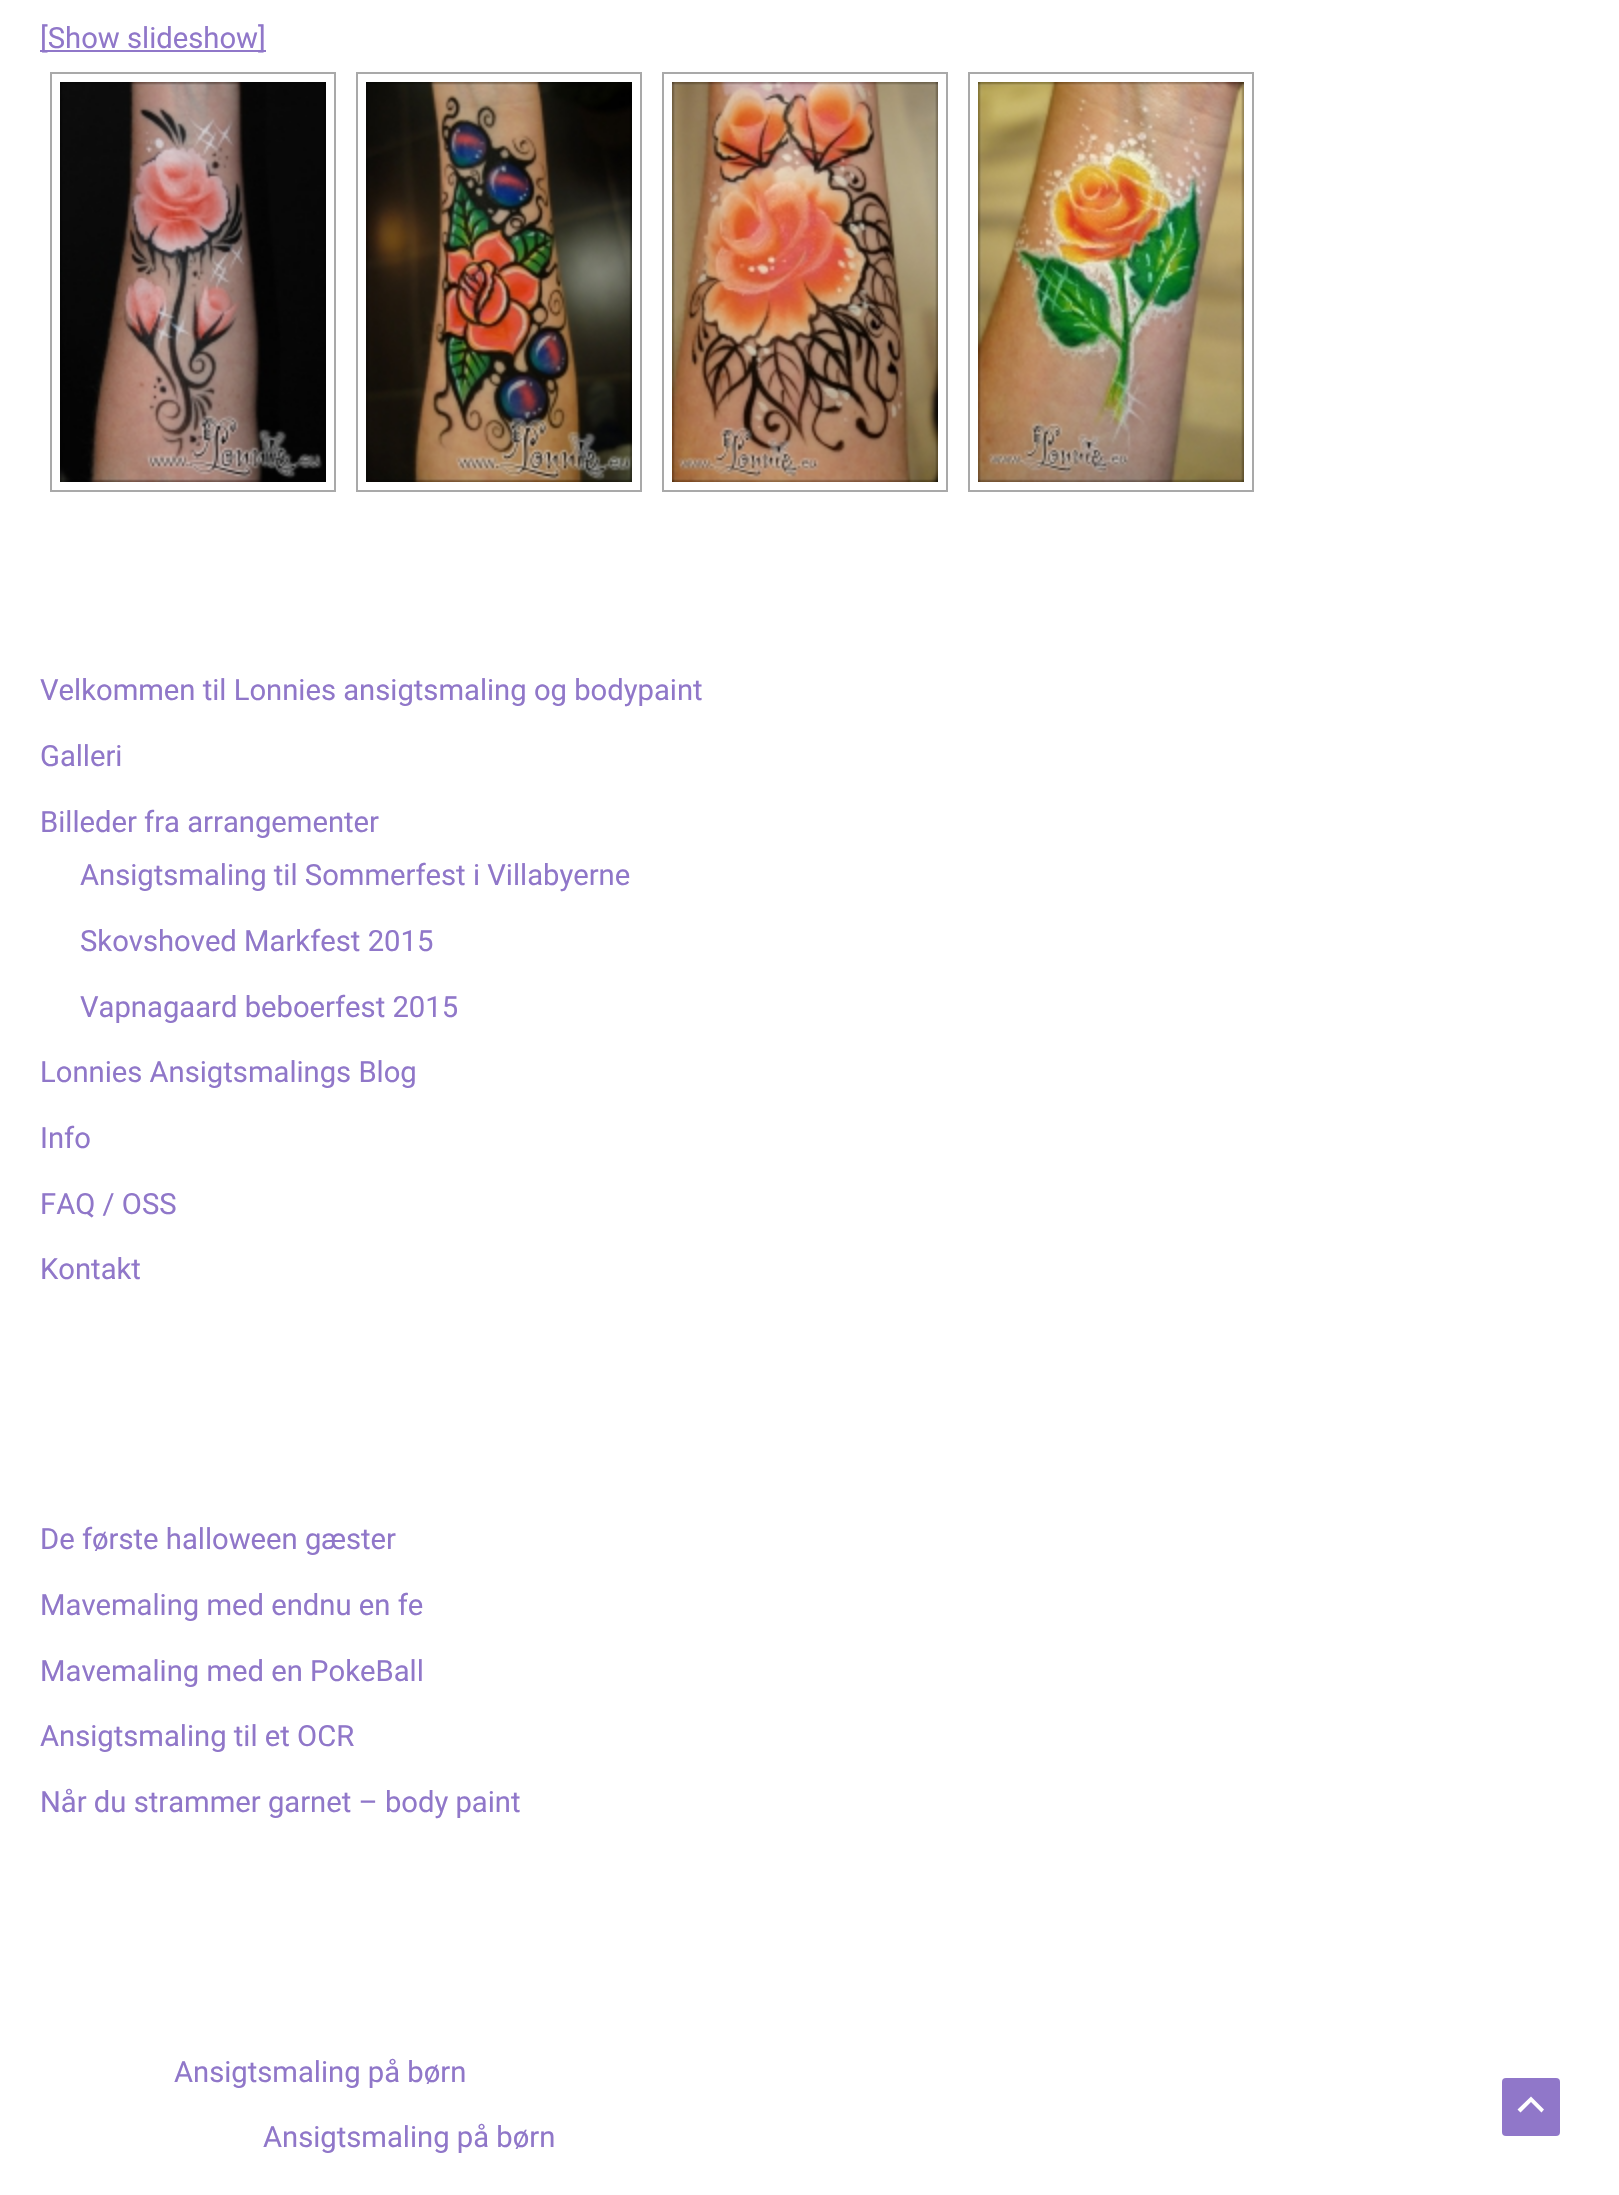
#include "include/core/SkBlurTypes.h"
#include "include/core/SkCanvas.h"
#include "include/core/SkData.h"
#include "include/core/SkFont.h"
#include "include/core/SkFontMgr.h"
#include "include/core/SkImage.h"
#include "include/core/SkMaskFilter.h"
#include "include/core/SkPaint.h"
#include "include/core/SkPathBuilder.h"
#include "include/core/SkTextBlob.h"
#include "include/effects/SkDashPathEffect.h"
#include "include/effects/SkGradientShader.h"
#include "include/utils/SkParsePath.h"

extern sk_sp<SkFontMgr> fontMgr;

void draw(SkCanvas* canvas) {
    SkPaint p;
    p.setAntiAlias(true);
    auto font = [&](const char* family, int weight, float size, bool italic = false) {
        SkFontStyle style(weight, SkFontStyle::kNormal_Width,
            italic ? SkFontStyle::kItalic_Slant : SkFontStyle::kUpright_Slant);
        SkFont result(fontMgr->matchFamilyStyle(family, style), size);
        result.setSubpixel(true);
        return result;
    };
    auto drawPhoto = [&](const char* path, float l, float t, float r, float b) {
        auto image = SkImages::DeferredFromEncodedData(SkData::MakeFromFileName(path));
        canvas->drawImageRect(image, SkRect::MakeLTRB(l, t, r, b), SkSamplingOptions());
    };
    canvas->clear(0xFFFFFFFF);
    p.setColor(0xFF9077C9);
    canvas->drawRect(SkRect::MakeLTRB(40, 50, 266, 52), p);
    auto font1 = font("Roboto", 400, 29.2f);
    canvas->drawString("[Show slideshow]", 40, 48, font1, p);
    p.setStyle(SkPaint::kStroke_Style);
    p.setStrokeWidth(2);
    p.setColor(0xFFA9A9A9);
    canvas->drawRect(SkRect::MakeLTRB(51, 73, 335, 491), p);
    drawPhoto("media/1.png", 60, 82, 326, 482);
    canvas->drawRect(SkRect::MakeLTRB(357, 73, 641, 491), p);
    drawPhoto("media/2.png", 366, 82, 632, 482);
    canvas->drawRect(SkRect::MakeLTRB(663, 73, 947, 491), p);
    drawPhoto("media/3.png", 672, 82, 938, 482);
    canvas->drawRect(SkRect::MakeLTRB(969, 73, 1253, 491), p);
    drawPhoto("media/4.png", 978, 82, 1244, 482);
    p.setStyle(SkPaint::kFill_Style);
    p.setColor(0xFF9077C9);
    {
        const struct { const char* s; float x, y; } items[] = {
            {"Velkommen til Lonnies ansigtsmaling og bodypaint", 40, 700},
            {"Galleri", 40, 766},
            {"Billeder fra arrangementer", 40, 832},
            {"Ansigtsmaling til Sommerfest i Villabyerne", 80, 885},
            {"Skovshoved Markfest 2015", 80, 951},
            {"Vapnagaard beboerfest 2015", 80, 1017},
            {"Lonnies Ansigtsmalings Blog", 40, 1082},
            {"Info", 40, 1148},
            {"FAQ / OSS", 40, 1214},
            {"Kontakt", 40, 1279},
            {"De første halloween gæster", 40, 1549},
            {"Mavemaling med endnu en fe", 40, 1615},
            {"Mavemaling med en PokeBall", 40, 1681},
            {"Ansigtsmaling til et OCR", 40, 1746},
            {"Når du strammer garnet – body paint", 40, 1812},
            {"Ansigtsmaling på børn", 174, 2082},
            {"Ansigtsmaling på børn", 263, 2147},
        };
        for (auto [s, x, y] : items) {
            canvas->drawString(s, x, y, font1, p);
        }
    }
    canvas->drawRoundRect(SkRect::MakeLTRB(1502, 2078, 1560, 2136), 4, 4, p);
    p.setColor(0xFFFFFFFF);
    canvas->drawPath(SkPathBuilder().moveTo(1544, 2109.5f).lineTo(1531, 2096.5f).lineTo(1517.5f, 2109.5f).lineTo(1520.5f, 2112.5f).lineTo(1531, 2102).lineTo(1541.5f, 2112.5f).close().detach(), p);
}
